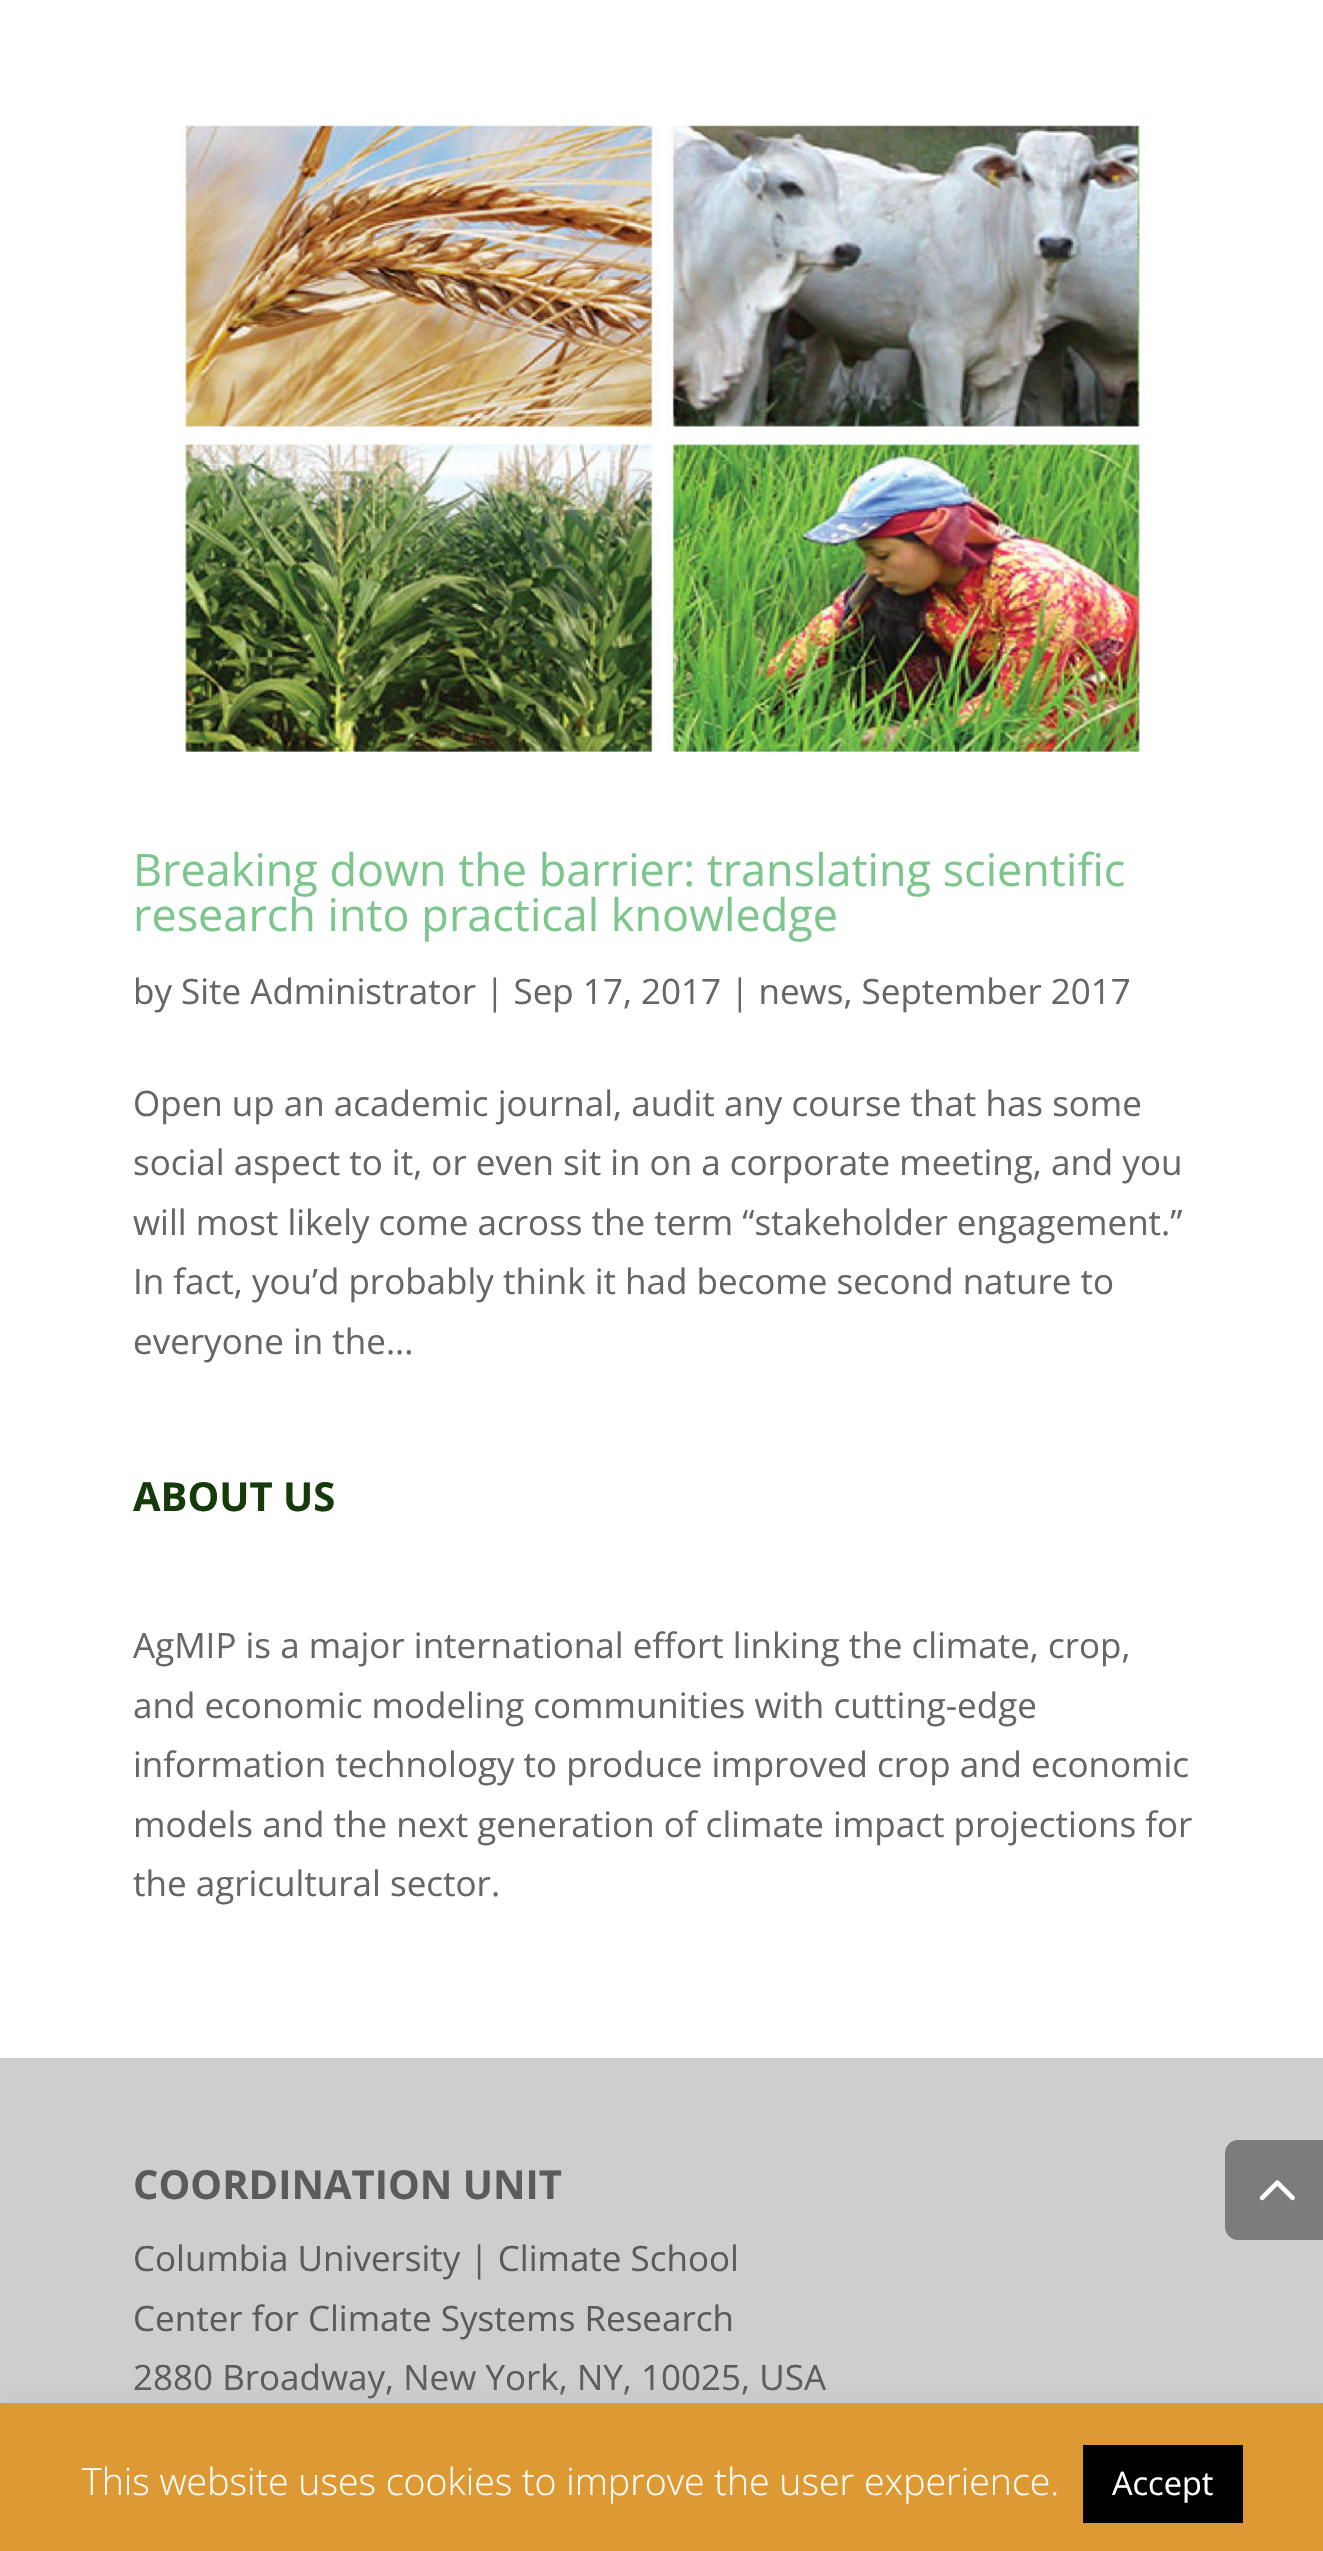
#include "include/core/SkBlurTypes.h"
#include "include/core/SkCanvas.h"
#include "include/core/SkData.h"
#include "include/core/SkFont.h"
#include "include/core/SkFontMgr.h"
#include "include/core/SkImage.h"
#include "include/core/SkMaskFilter.h"
#include "include/core/SkPaint.h"
#include "include/core/SkPathBuilder.h"
#include "include/core/SkTextBlob.h"
#include "include/effects/SkDashPathEffect.h"
#include "include/effects/SkGradientShader.h"
#include "include/utils/SkParsePath.h"

extern sk_sp<SkFontMgr> fontMgr;

void draw(SkCanvas* canvas) {
    SkPaint p;
    p.setAntiAlias(true);
    auto font = [&](const char* family, int weight, float size, bool italic = false) {
        SkFontStyle style(weight, SkFontStyle::kNormal_Width,
            italic ? SkFontStyle::kItalic_Slant : SkFontStyle::kUpright_Slant);
        SkFont result(fontMgr->matchFamilyStyle(family, style), size);
        result.setSubpixel(true);
        return result;
    };
    auto drawPhoto = [&](const char* path, float l, float t, float r, float b) {
        auto image = SkImages::DeferredFromEncodedData(SkData::MakeFromFileName(path));
        canvas->drawImageRect(image, SkRect::MakeLTRB(l, t, r, b), SkSamplingOptions());
    };
    canvas->clear(0xFFFFFFFF);
    drawPhoto("media/1.png", 179, 125, 1146, 752);
    auto font1 = font("Open Sans", 400, 45);
    p.setColor(0xFF7CC68D);
    canvas->drawString("Breaking down the barrier: translating scientific", 133, 886, font1, p);
    canvas->drawString("research into practical knowledge", 133, 931, font1, p);
    auto font2 = font("Open Sans", 400, 35);
    p.setColor(0xFF666666);
    {
        const struct { const char* s; float x, y; } items[] = {
            {"by Site Administrator | Sep 17, 2017 | news, September 2017", 133, 1004},
            {"Open up an academic journal, audit any course that has some", 133, 1116},
            {"social aspect to it, or even sit in on a corporate meeting, and you", 133, 1175},
            {"will most likely come across the term “stakeholder engagement.”", 133, 1235},
            {"In fact, you’d probably think it had become second nature to", 133, 1294},
            {"everyone in the...", 133, 1354},
        };
        for (auto [s, x, y] : items) {
            canvas->drawString(s, x, y, font2, p);
        }
    }
    auto font3 = font("Open Sans", 700, 40);
    p.setColor(0xFF163B0A);
    canvas->drawString("ABOUT US", 133, 1511, font3, p);
    p.setColor(0xFF666666);
    {
        const struct { const char* s; float x, y; } items[] = {
            {"AgMIP is a major international effort linking the climate, crop,", 133, 1658},
            {"and economic modeling communities with cutting-edge", 133, 1718},
            {"information technology to produce improved crop and economic", 133, 1777},
            {"models and the next generation of climate impact projections for", 133, 1837},
            {"the agricultural sector.", 133, 1896},
        };
        for (auto [s, x, y] : items) {
            canvas->drawString(s, x, y, font2, p);
        }
    }
    p.setColor(0xFFCECECE);
    canvas->drawRect(SkRect::MakeLTRB(0, 2058, 1323, 2403), p);
    p.setColor(0xFF5B5B5B);
    canvas->drawString("COORDINATION UNIT", 133, 2199, font3, p);
    {
        const struct { const char* s; float x, y; } items[] = {
            {"Columbia University | Climate School", 133, 2271},
            {"Center for Climate Systems Research", 133, 2331},
            {"2880 Broadway, New York, NY, 10025, USA", 133, 2390},
        };
        for (auto [s, x, y] : items) {
            canvas->drawString(s, x, y, font2, p);
        }
    }
    p.setColor(0xFF7C7C7C);
    canvas->drawPath(SkPathBuilder().moveTo(1238, 2140).lineTo(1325, 2140).lineTo(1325, 2240).lineTo(1238, 2240).cubicTo(1231, 2240, 1225, 2234, 1225, 2227).lineTo(1225, 2153).cubicTo(1225, 2146, 1231, 2140, 1238, 2140).close().detach(), p);
    drawPhoto("media/2.png", 1259, 2180, 1295, 2201);
    p.setColor(0x4DACABAB);
    p.setMaskFilter(SkMaskFilter::MakeBlur(kNormal_SkBlurStyle, 12.5f));
    canvas->drawRect(SkRect::MakeLTRB(0, 2400, 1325, 2550), p);
    p.setMaskFilter(nullptr);
    p.setColor(0xFFDD9933);
    canvas->drawRect(SkRect::MakeLTRB(0, 2403, 1323, 2551), p);
    auto font4 = font("Open Sans", 300, 37.5f);
    p.setColor(0xFFFFFFFF);
    canvas->drawString("This website uses cookies to improve the user experience.", 82, 2495, font4, p);
    p.setColor(0xFF000000);
    canvas->drawRect(SkRect::MakeLTRB(1083, 2445, 1243, 2523), p);
    auto font5 = font("Open Sans", 400, 32.5f);
    p.setColor(0xFFFFFFFF);
    canvas->drawString("Accept", 1112, 2495, font5, p);
}
